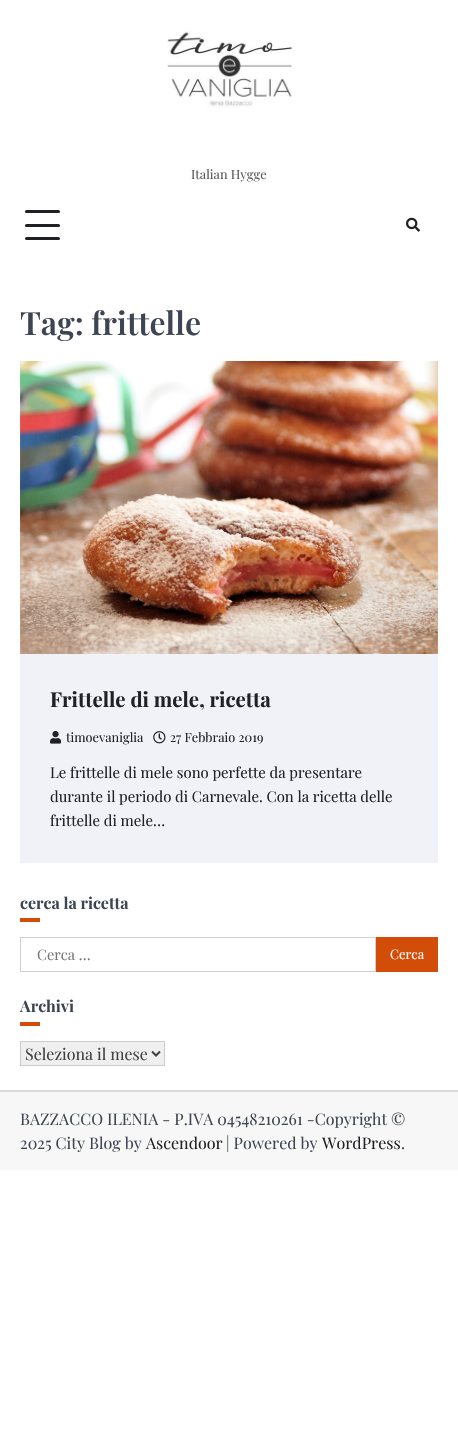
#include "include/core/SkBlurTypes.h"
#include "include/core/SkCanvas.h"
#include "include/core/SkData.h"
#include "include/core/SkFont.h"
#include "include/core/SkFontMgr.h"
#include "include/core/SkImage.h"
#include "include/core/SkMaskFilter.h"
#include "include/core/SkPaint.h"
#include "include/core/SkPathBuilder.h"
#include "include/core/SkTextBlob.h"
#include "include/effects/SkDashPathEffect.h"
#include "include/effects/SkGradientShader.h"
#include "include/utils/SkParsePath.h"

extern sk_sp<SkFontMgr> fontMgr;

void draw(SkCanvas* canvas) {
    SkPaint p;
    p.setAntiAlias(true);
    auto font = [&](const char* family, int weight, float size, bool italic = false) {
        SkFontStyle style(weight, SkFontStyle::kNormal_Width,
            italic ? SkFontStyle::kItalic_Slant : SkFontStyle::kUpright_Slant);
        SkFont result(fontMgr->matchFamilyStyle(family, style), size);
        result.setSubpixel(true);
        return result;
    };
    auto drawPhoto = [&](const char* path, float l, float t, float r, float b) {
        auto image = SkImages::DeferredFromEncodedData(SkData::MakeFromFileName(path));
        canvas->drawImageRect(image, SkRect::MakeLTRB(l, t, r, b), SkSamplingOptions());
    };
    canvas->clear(0xFFFFFFFF);
    drawPhoto("media/1.png", 167, 31, 293, 108);
    auto font1 = font("Playfair Display", 400, 12.75f);
    p.setColor(0xFF595959);
    canvas->drawString("Italian Hygge", 191, 179, font1, p);
    p.setColor(0xFF202124);
    canvas->drawRoundRect(SkRect::MakeLTRB(25, 210, 60, 213), 1.5f, 1.5f, p);
    canvas->drawRoundRect(SkRect::MakeLTRB(25, 224, 60, 227), 1.5f, 1.5f, p);
    canvas->drawRoundRect(SkRect::MakeLTRB(25, 237, 60, 240), 1.5f, 1.5f, p);
    drawPhoto("media/2.png", 406, 217, 420, 232);
    auto font2 = font("Playfair Display", 600, 32);
    p.setColor(0xFF3D4452);
    canvas->drawString("Tag: frittelle", 20, 335, font2, p);
    p.setColor(0xFFF0F2F7);
    canvas->drawRect(SkRect::MakeLTRB(20, 654, 438, 863), p);
    drawPhoto("media/3.png", 20, 361, 438, 654);
    auto font3 = font("Playfair Display", 700, 20.4f);
    p.setColor(0xFF202124);
    canvas->drawString("Frittelle di mele, ricetta", 50, 707, font3, p);
    drawPhoto("media/4.png", 50, 731, 62, 744);
    canvas->drawString("timoevaniglia", 66, 742, font1, p);
    drawPhoto("media/5.png", 153, 731, 166, 744);
    canvas->drawString("27 Febbraio 2019", 170, 742, font1, p);
    auto font4 = font("Playfair Display", 400, 14.9f);
    {
        const struct { const char* s; float x, y; } items[] = {
            {"Le frittelle di mele sono perfette da presentare", 50, 778},
            {"durante il periodo di Carnevale. Con la ricetta delle", 50, 802},
            {"frittelle di mele…", 50, 826},
        };
        for (auto [s, x, y] : items) {
            canvas->drawString(s, x, y, font4, p);
        }
    }
    auto font5 = font("Playfair Display", 700, 16);
    p.setColor(0xFF3D4452);
    canvas->drawString("cerca la ricetta", 20, 909, font5, p);
    p.setColor(0xFFD24E08);
    canvas->drawRect(SkRect::MakeLTRB(20, 918, 40, 922), p);
    p.setStyle(SkPaint::kStroke_Style);
    p.setStrokeWidth(1);
    p.setColor(0xFFD3CED2);
    canvas->drawRect(SkRect::MakeLTRB(20.5f, 937.5f, 375.5f, 971.5f), p);
    auto font6 = font("Playfair Display", 400, 14.5f);
    p.setStyle(SkPaint::kFill_Style);
    p.setColor(0xFF757575);
    canvas->drawString("Cerca …", 37, 960, font6, p);
    p.setColor(0xFFD24E08);
    canvas->drawRect(SkRect::MakeLTRB(376, 937, 438, 972), p);
    auto font7 = font("Playfair Display", 400, 13);
    p.setColor(0xFFFFFFFF);
    canvas->drawString("Cerca", 390, 959, font7, p);
    p.setColor(0xFF3D4452);
    canvas->drawString("Archivi", 20, 1012, font5, p);
    p.setColor(0xFFD24E08);
    canvas->drawRect(SkRect::MakeLTRB(20, 1022, 40, 1026), p);
    p.setColor(0xFFEFEFEF);
    canvas->drawRect(SkRect::MakeLTRB(20.5f, 1041.5f, 164.5f, 1065.5f), p);
    p.setStyle(SkPaint::kStroke_Style);
    p.setColor(0xFFCCCCCC);
    canvas->drawRect(SkRect::MakeLTRB(20.5f, 1041.5f, 164.5f, 1065.5f), p);
    p.setStrokeWidth(2);
    p.setColor(0xFF404040);
    canvas->drawPath(SkPathBuilder().moveTo(152, 1051.5f).lineTo(156, 1055.5f).lineTo(160, 1051.5f).detach(), p);
    auto font8 = font("Playfair Display", 400, 16);
    p.setStyle(SkPaint::kFill_Style);
    canvas->drawString("Seleziona il mese", 25, 1060, font8, p);
    p.setColor(0xFFDADADB);
    canvas->drawRect(SkRect::MakeLTRB(0, 1090, 458, 1092), p);
    p.setColor(0xFFF7F7F7);
    canvas->drawRect(SkRect::MakeLTRB(0, 1092, 458, 1170), p);
    p.setColor(0xFF3D4452);
    canvas->drawString("BAZZACCO ILENIA - P.IVA 04548210261 -Copyright ©", 20, 1125, font8, p);
    canvas->drawString("2025 City Blog by", 20, 1149, font8, p);
    p.setColor(0xFF202124);
    canvas->drawString("Ascendoor", 146, 1149, font8, p);
    p.setColor(0xFF3D4452);
    canvas->drawString("| Powered by", 226, 1149, font8, p);
    p.setColor(0xFF202124);
    canvas->drawString("WordPress", 322, 1149, font8, p);
    p.setColor(0xFF3D4452);
    canvas->drawString(".", 401, 1149, font8, p);
}
